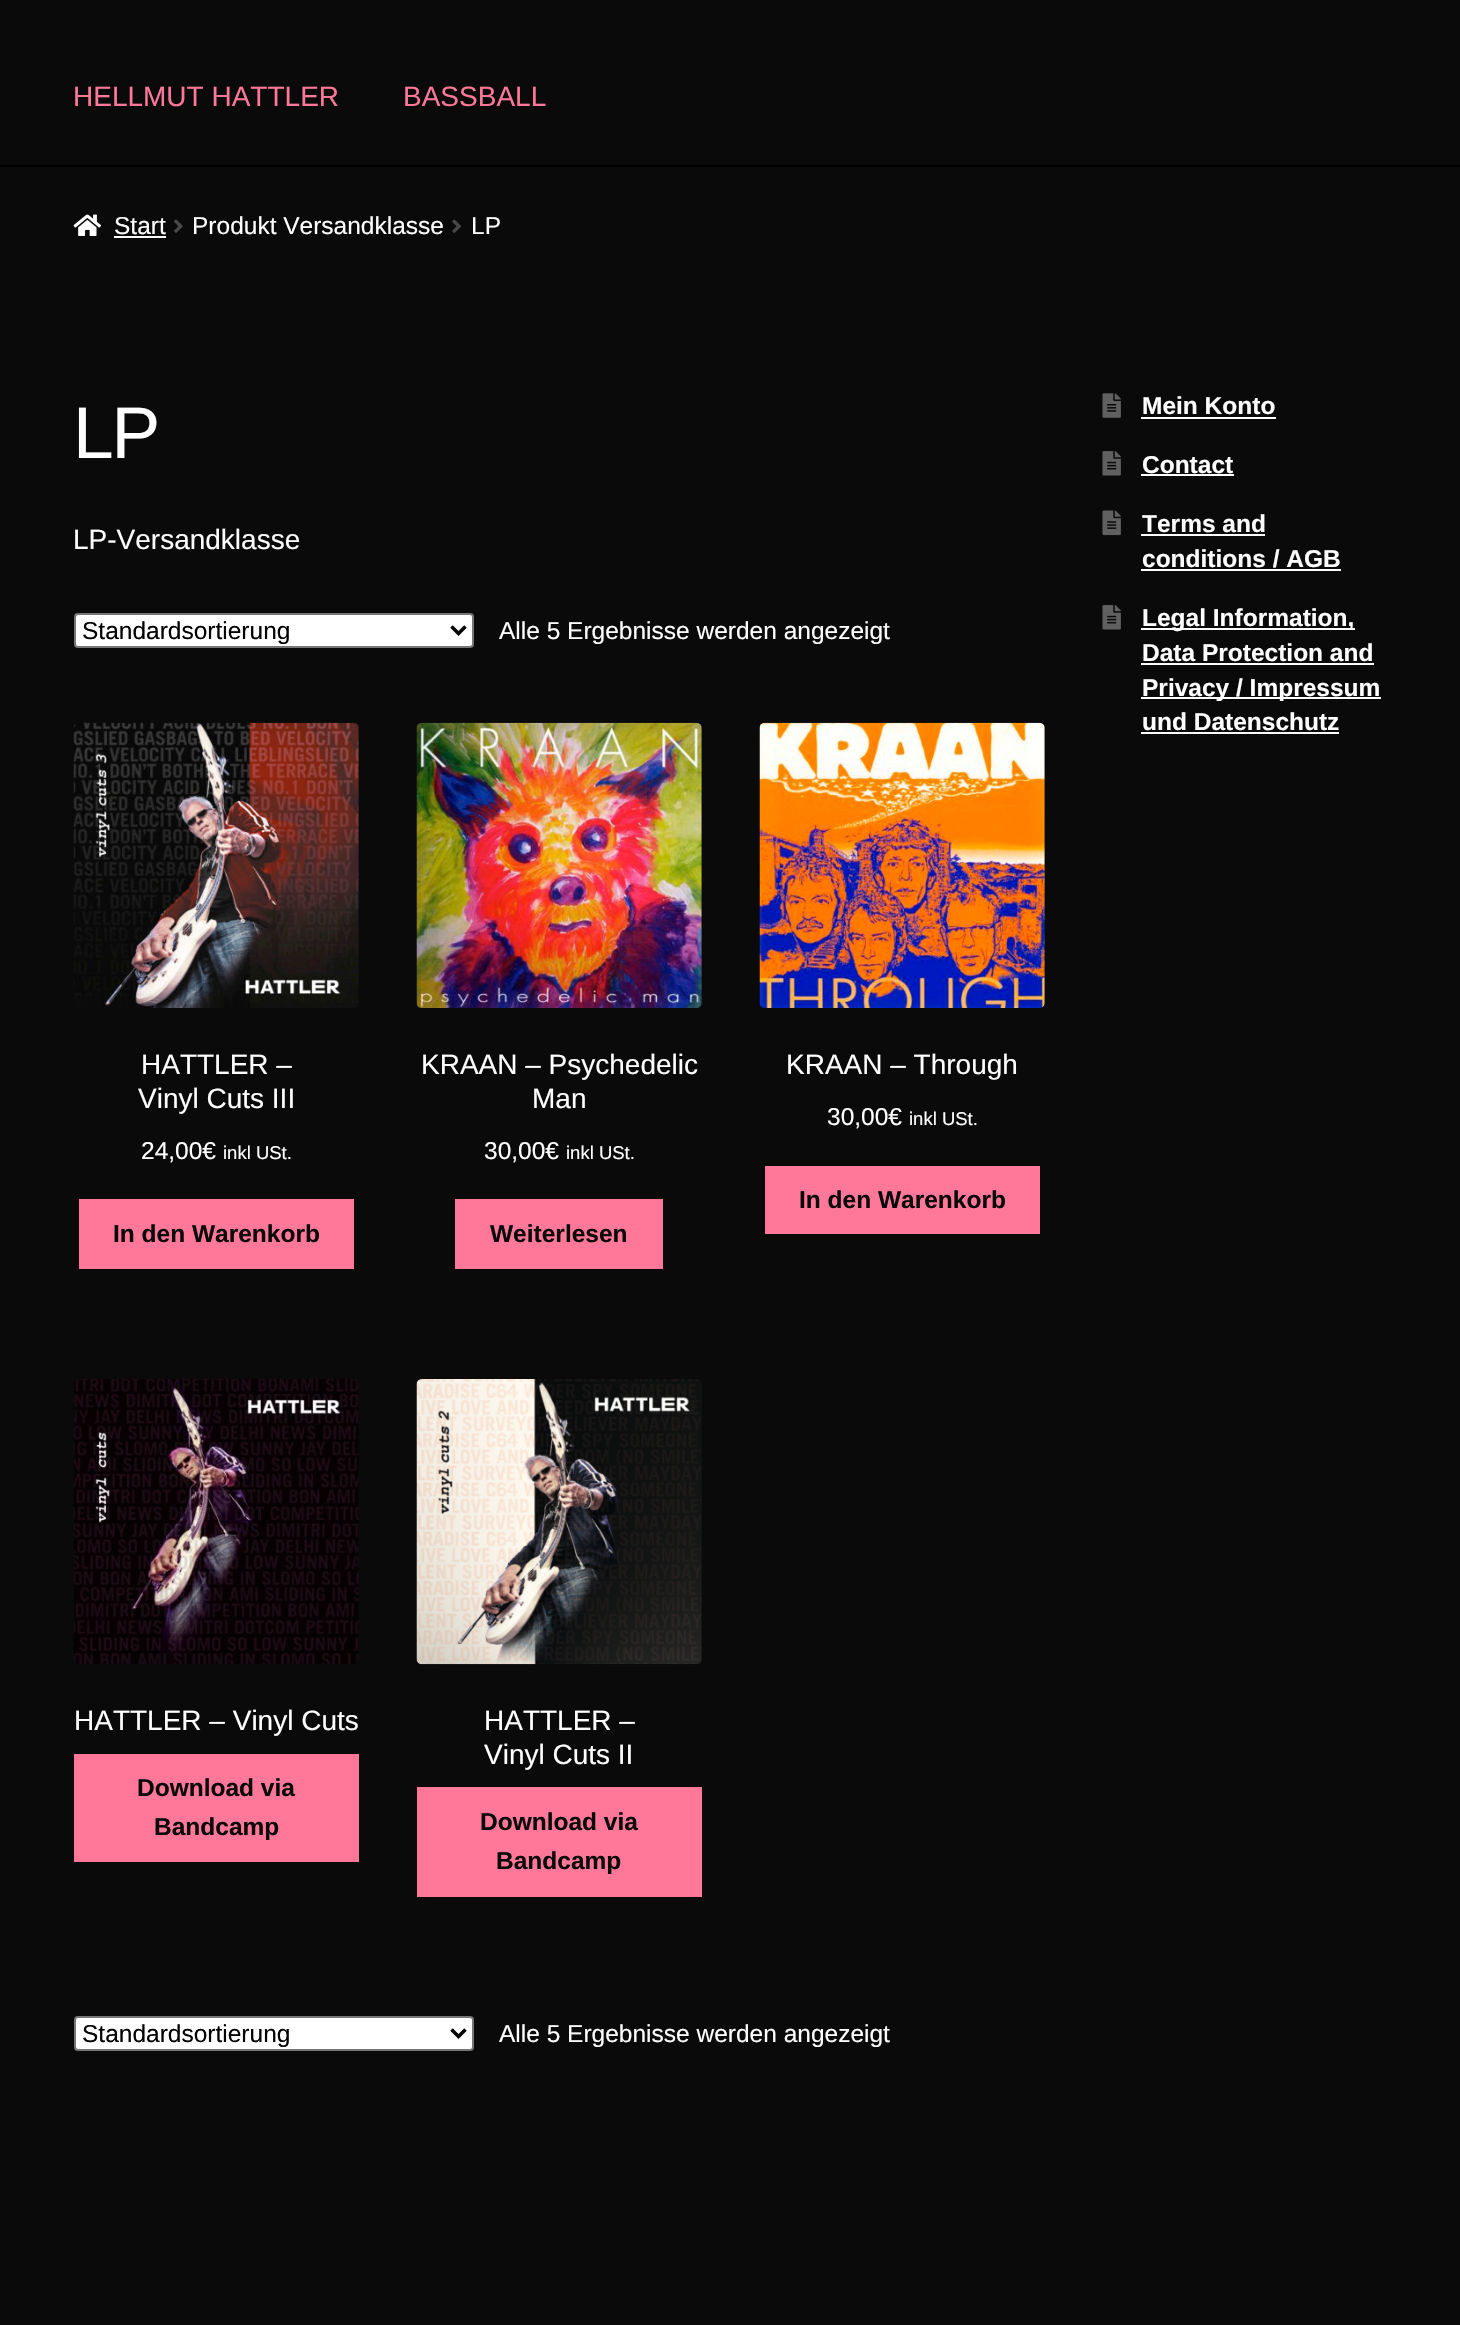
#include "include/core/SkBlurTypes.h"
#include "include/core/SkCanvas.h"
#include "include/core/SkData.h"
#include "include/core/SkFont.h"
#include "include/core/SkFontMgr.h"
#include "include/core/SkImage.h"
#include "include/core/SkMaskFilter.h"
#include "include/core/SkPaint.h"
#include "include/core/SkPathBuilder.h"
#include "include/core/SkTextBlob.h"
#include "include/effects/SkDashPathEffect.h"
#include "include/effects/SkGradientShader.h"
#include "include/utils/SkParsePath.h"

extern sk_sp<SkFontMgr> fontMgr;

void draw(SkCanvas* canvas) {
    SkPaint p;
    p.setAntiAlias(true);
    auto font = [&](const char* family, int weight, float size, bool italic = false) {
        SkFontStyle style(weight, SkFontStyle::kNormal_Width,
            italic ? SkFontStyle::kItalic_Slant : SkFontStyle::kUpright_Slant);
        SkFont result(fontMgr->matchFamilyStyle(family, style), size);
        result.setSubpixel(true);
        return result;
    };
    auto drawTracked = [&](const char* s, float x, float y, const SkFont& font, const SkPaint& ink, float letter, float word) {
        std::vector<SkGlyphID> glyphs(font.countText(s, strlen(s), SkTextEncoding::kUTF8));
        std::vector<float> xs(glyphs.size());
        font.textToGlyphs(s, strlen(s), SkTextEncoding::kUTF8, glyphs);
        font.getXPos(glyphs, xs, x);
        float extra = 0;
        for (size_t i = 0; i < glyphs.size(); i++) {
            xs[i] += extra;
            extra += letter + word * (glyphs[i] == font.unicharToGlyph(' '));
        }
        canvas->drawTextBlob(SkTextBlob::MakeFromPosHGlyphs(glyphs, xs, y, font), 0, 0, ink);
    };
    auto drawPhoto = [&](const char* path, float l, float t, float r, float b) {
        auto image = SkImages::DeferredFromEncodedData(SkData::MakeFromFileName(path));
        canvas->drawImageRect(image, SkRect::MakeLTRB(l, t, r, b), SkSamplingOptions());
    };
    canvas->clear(0xFF0A0A0A);
    p.setColor(0xFF000000);
    canvas->drawRect(SkRect::MakeLTRB(0, 165, 1460, 167), p);
    auto font1 = font("Liberation Sans", 400, 28);
    p.setColor(0xFFFF7799);
    canvas->drawString("HELLMUT HATTLER", 73, 106, font1, p);
    canvas->drawString("BASSBALL", 403, 106, font1, p);
    drawPhoto("media/1.png", 73, 214, 102, 236);
    auto font2 = font("Liberation Sans", 400, 24.5f);
    p.setColor(0xFFFFFFFF);
    canvas->drawString("Start", 114, 234, font2, p);
    canvas->drawRect(SkRect::MakeLTRB(114, 236, 166, 238), p);
    drawPhoto("media/2.png", 174, 219, 183, 233);
    canvas->drawString("Produkt Versandklasse", 192, 234, font2, p);
    drawPhoto("media/3.png", 452, 219, 461, 233);
    canvas->drawString("LP", 471, 234, font2, p);
    auto font3 = font("Liberation Sans", 400, 73);
    drawTracked("LP", 73, 458, font3, p, -2, 0);
    canvas->drawString("LP-Versandklasse", 73, 549, font1, p);
    canvas->drawRoundRect(SkRect::MakeLTRB(75, 614, 473, 647), 3, 3, p);
    p.setStyle(SkPaint::kStroke_Style);
    p.setStrokeWidth(2);
    p.setColor(0xFF767676);
    canvas->drawRoundRect(SkRect::MakeLTRB(75, 614, 473, 647), 3, 3, p);
    p.setStrokeWidth(3.5f);
    p.setColor(0xFF000000);
    canvas->drawPath(SkPathBuilder().moveTo(451.5f, 626.5f).lineTo(458.5f, 633.5f).lineTo(465.5f, 626.5f).detach(), p);
    p.setStyle(SkPaint::kFill_Style);
    canvas->drawString("Standardsortierung", 82, 639, font2, p);
    p.setColor(0xFFFFFFFF);
    canvas->drawString("Alle 5 Ergebnisse werden angezeigt", 499, 639, font2, p);
    drawPhoto("media/4.png", 73, 722, 359, 1008);
    canvas->drawString("HATTLER –", 141, 1074, font1, p);
    canvas->drawString("Vinyl Cuts III", 138, 1108, font1, p);
    canvas->drawString("24,00€", 141, 1159, font2, p);
    auto font4 = font("Liberation Sans", 400, 18.5f);
    canvas->drawString("inkl USt.", 223, 1159, font4, p);
    p.setColor(0xFFFF7799);
    canvas->drawRect(SkRect::MakeLTRB(79, 1199, 354, 1269), p);
    auto font5 = font("Liberation Sans", 700, 24.5f);
    p.setColor(0xFF0A0A0A);
    canvas->drawString("In den Warenkorb", 113, 1242, font5, p);
    drawPhoto("media/5.png", 416, 722, 702, 1008);
    p.setColor(0xFFFFFFFF);
    canvas->drawString("KRAAN – Psychedelic", 421, 1074, font1, p);
    canvas->drawString("Man", 532, 1108, font1, p);
    canvas->drawString("30,00€", 484, 1159, font2, p);
    canvas->drawString("inkl USt.", 566, 1159, font4, p);
    p.setColor(0xFFFF7799);
    canvas->drawRect(SkRect::MakeLTRB(455, 1199, 663, 1269), p);
    p.setColor(0xFF0A0A0A);
    canvas->drawString("Weiterlesen", 490, 1242, font5, p);
    drawPhoto("media/6.png", 759, 722, 1045, 1008);
    p.setColor(0xFFFFFFFF);
    canvas->drawString("KRAAN – Through", 786, 1074, font1, p);
    canvas->drawString("30,00€", 827, 1125, font2, p);
    canvas->drawString("inkl USt.", 909, 1125, font4, p);
    p.setColor(0xFFFF7799);
    canvas->drawRect(SkRect::MakeLTRB(765, 1166, 1040, 1234), p);
    p.setColor(0xFF0A0A0A);
    canvas->drawString("In den Warenkorb", 799, 1208, font5, p);
    drawPhoto("media/7.png", 73, 1379, 359, 1664);
    p.setColor(0xFFFFFFFF);
    canvas->drawString("HATTLER – Vinyl Cuts", 74, 1730, font1, p);
    p.setColor(0xFFFF7799);
    canvas->drawRect(SkRect::MakeLTRB(74, 1754, 359, 1862), p);
    p.setColor(0xFF0A0A0A);
    canvas->drawString("Download via", 137, 1796, font5, p);
    canvas->drawString("Bandcamp", 154, 1835, font5, p);
    drawPhoto("media/8.png", 416, 1379, 702, 1665);
    p.setColor(0xFFFFFFFF);
    canvas->drawString("HATTLER –", 484, 1730, font1, p);
    canvas->drawString("Vinyl Cuts II", 484, 1764, font1, p);
    p.setColor(0xFFFF7799);
    canvas->drawRect(SkRect::MakeLTRB(417, 1787, 702, 1897), p);
    p.setColor(0xFF0A0A0A);
    canvas->drawString("Download via", 480, 1830, font5, p);
    canvas->drawString("Bandcamp", 496, 1869, font5, p);
    p.setColor(0xFFFFFFFF);
    canvas->drawRoundRect(SkRect::MakeLTRB(75, 2017, 473, 2050), 3, 3, p);
    p.setStyle(SkPaint::kStroke_Style);
    p.setStrokeWidth(2);
    p.setColor(0xFF767676);
    canvas->drawRoundRect(SkRect::MakeLTRB(75, 2017, 473, 2050), 3, 3, p);
    p.setStrokeWidth(3.5f);
    p.setColor(0xFF000000);
    canvas->drawPath(SkPathBuilder().moveTo(451.5f, 2029.5f).lineTo(458.5f, 2036.5f).lineTo(465.5f, 2029.5f).detach(), p);
    p.setStyle(SkPaint::kFill_Style);
    canvas->drawString("Standardsortierung", 82, 2042, font2, p);
    p.setColor(0xFFFFFFFF);
    canvas->drawString("Alle 5 Ergebnisse werden angezeigt", 499, 2042, font2, p);
    drawPhoto("media/9.png", 1102, 393, 1121, 418);
    canvas->drawString("Mein Konto", 1142, 414, font5, p);
    canvas->drawRect(SkRect::MakeLTRB(1141, 417, 1276, 419), p);
    drawPhoto("media/10.png", 1102, 451, 1121, 476);
    canvas->drawString("Contact", 1142, 473, font5, p);
    canvas->drawRect(SkRect::MakeLTRB(1141, 474, 1234, 476), p);
    drawPhoto("media/11.png", 1102, 510, 1121, 536);
    canvas->drawString("Terms and", 1142, 532, font5, p);
    canvas->drawRect(SkRect::MakeLTRB(1141, 534, 1265, 536), p);
    canvas->drawString("conditions / AGB", 1142, 567, font5, p);
    canvas->drawRect(SkRect::MakeLTRB(1141, 569, 1341, 571), p);
    drawPhoto("media/10.png", 1102, 605, 1121, 630);
    canvas->drawRect(SkRect::MakeLTRB(1141, 628, 1355, 630), p);
    canvas->drawString("Legal Information,", 1142, 626, font5, p);
    canvas->drawString("Data Protection and", 1142, 661, font5, p);
    canvas->drawRect(SkRect::MakeLTRB(1141, 663, 1374, 665), p);
    canvas->drawRect(SkRect::MakeLTRB(1141, 697, 1381, 699), p);
    canvas->drawString("Privacy / Impressum", 1142, 696, font5, p);
    canvas->drawString("und Datenschutz", 1142, 730, font5, p);
    canvas->drawRect(SkRect::MakeLTRB(1141, 732, 1339, 734), p);
}
